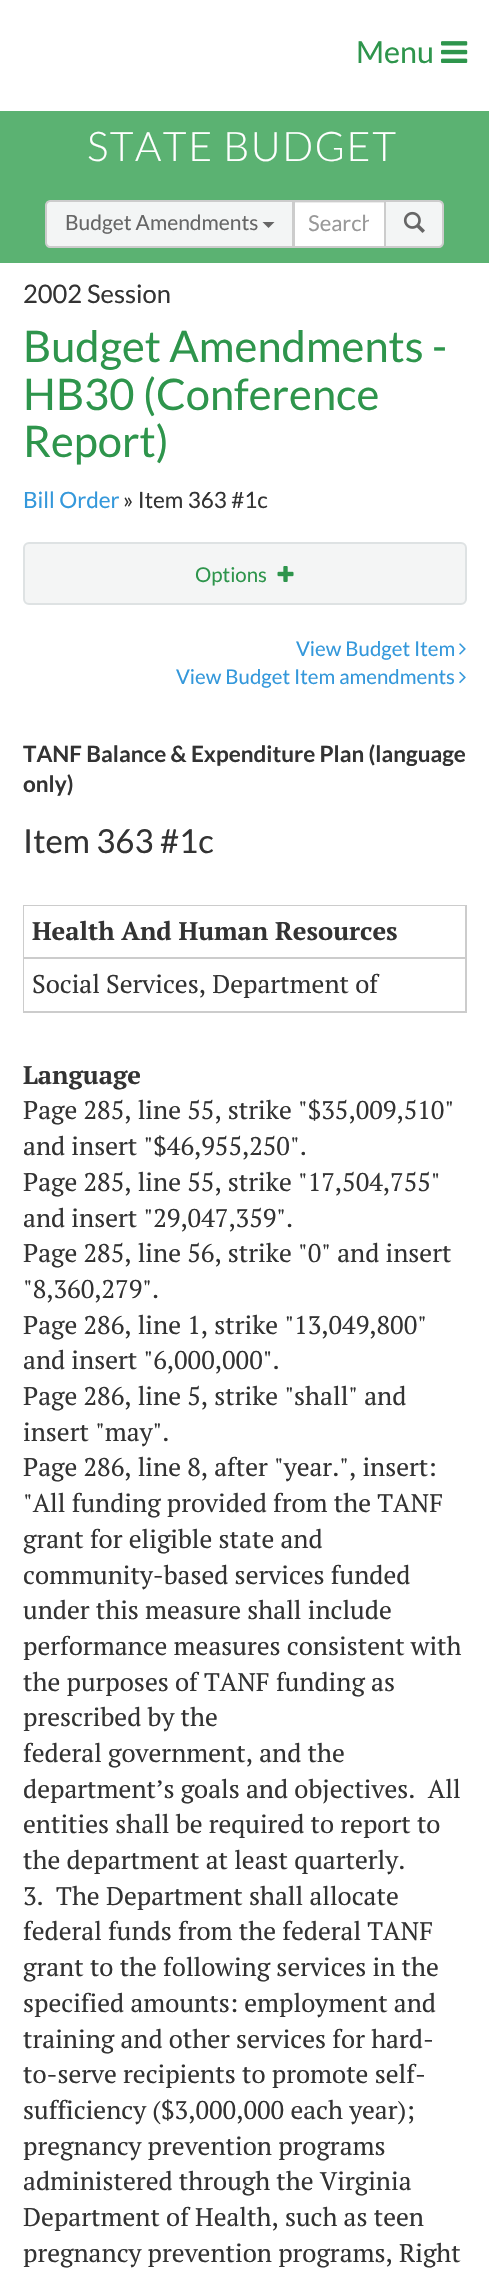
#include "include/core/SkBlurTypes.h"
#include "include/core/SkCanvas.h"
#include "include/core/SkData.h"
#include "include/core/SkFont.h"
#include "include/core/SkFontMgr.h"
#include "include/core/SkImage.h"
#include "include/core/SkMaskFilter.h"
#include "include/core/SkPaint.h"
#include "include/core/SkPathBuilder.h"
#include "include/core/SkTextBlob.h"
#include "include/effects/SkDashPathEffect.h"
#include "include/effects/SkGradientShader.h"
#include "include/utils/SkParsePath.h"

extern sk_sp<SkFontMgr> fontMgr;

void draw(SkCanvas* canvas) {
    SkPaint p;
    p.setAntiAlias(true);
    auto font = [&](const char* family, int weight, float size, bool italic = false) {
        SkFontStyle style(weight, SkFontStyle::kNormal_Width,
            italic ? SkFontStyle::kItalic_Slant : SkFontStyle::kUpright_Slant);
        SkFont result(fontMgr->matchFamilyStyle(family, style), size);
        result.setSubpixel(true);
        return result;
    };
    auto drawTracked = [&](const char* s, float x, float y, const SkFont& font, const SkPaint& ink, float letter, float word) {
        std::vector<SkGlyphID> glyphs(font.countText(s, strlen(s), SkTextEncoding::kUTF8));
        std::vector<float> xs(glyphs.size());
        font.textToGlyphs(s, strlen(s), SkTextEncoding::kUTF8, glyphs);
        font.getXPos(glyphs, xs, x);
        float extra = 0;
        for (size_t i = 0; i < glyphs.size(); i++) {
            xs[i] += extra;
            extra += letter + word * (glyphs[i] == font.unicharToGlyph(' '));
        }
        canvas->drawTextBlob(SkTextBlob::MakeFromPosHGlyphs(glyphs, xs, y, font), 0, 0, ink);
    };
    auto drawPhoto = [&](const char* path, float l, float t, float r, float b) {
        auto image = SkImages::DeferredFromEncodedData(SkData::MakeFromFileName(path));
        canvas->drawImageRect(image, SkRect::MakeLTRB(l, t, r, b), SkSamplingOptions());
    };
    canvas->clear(0xFFFFFFFF);
    auto font1 = font("Lato", 400, 30.5f);
    p.setColor(0xFF2E954C);
    canvas->drawString("Menu", 356, 63, font1, p);
    drawPhoto("media/1.png", 441, 41, 468, 63);
    p.setColor(0xFF5BB272);
    canvas->drawRect(SkRect::MakeLTRB(0, 111, 489, 263), p);
    auto font2 = font("Lato", 300, 40.75f);
    p.setColor(0xFFFFFFFF);
    drawTracked("STATE BUDGET", 87, 161, font2, p, 1.5f, 0);
    canvas->drawRect(SkRect::MakeLTRB(295, 203, 384, 246), p);
    p.setColor(0xFFECECEC);
    canvas->drawRect(SkRect::MakeLTRB(294, 202, 384, 203), p);
    p.setStyle(SkPaint::kStroke_Style);
    p.setStrokeWidth(2);
    p.setColor(0xFFCCCCCC);
    canvas->drawRect(SkRect::MakeLTRB(294, 201, 385, 247), p);
    p.setStyle(SkPaint::kFill_Style);
    p.setColor(0xFFF3F5F5);
    canvas->drawPath(SkPathBuilder().moveTo(50, 201).lineTo(293, 201).lineTo(293, 247).lineTo(50, 247).cubicTo(48, 247, 46, 245, 46, 243).lineTo(46, 205).cubicTo(46, 203, 48, 201, 50, 201).close().detach(), p);
    p.setStyle(SkPaint::kStroke_Style);
    p.setColor(0xFFCCCCCC);
    canvas->drawPath(SkPathBuilder().moveTo(50, 201).lineTo(293, 201).lineTo(293, 247).lineTo(50, 247).cubicTo(48, 247, 46, 245, 46, 243).lineTo(46, 205).cubicTo(46, 203, 48, 201, 50, 201).close().detach(), p);
    auto font3 = font("Lato", 400, 21);
    p.setStyle(SkPaint::kFill_Style);
    p.setColor(0xFF666666);
    canvas->drawString("Budget Amendments", 65, 230, font3, p);
    canvas->drawPath(SkPathBuilder().moveTo(262.5f, 222).lineTo(274.5f, 222).lineTo(268.5f, 228).close().detach(), p);
    canvas->save();
    canvas->clipRect(SkRect::MakeLTRB(309, 210, 369, 236));
    auto font4 = font("Lato", 400, 22);
    p.setColor(0xFF999999);
    canvas->drawString("Search", 308, 231, font4, p);
    canvas->restore();
    p.setColor(0xFFF3F5F5);
    canvas->drawPath(SkPathBuilder().moveTo(385, 201).lineTo(439, 201).cubicTo(441, 201, 443, 203, 443, 205).lineTo(443, 243).cubicTo(443, 245, 441, 247, 439, 247).lineTo(385, 247).close().detach(), p);
    p.setStyle(SkPaint::kStroke_Style);
    p.setColor(0xFFCCCCCC);
    canvas->drawPath(SkPathBuilder().moveTo(385, 201).lineTo(439, 201).cubicTo(441, 201, 443, 203, 443, 205).lineTo(443, 243).cubicTo(443, 245, 441, 247, 439, 247).lineTo(385, 247).close().detach(), p);
    drawPhoto("media/2.png", 403, 211, 425, 233);
    auto font5 = font("Lato", 400, 25.5f);
    p.setStyle(SkPaint::kFill_Style);
    p.setColor(0xFF333333);
    canvas->drawString("2002 Session", 23, 303, font5, p);
    auto font6 = font("Lato", 400, 43.5f);
    p.setColor(0xFF2E954C);
    {
        const struct { const char* s; float x, y; } items[] = {
            {"Budget Amendments -", 23, 362},
            {"HB30 (Conference", 23, 410},
            {"Report)", 23, 457},
        };
        for (auto [s, x, y] : items) {
            canvas->drawString(s, x, y, font6, p);
        }
    }
    auto font7 = font("Lato", 400, 22.5f);
    p.setColor(0xFF3498DB);
    canvas->drawString("Bill Order", 23, 508, font7, p);
    p.setColor(0xFF333333);
    canvas->drawString("» Item 363 #1c", 123, 508, font7, p);
    p.setColor(0xFFF4F5F5);
    canvas->drawRoundRect(SkRect::MakeLTRB(24, 543, 466, 604), 5, 5, p);
    p.setStyle(SkPaint::kStroke_Style);
    p.setColor(0xFFDEE2E3);
    canvas->drawRoundRect(SkRect::MakeLTRB(24, 543, 466, 604), 5, 5, p);
    auto font8 = font("Lato", 400, 20.4f);
    p.setStyle(SkPaint::kFill_Style);
    p.setColor(0xFF2E954C);
    canvas->drawString("Options", 195, 582, font8, p);
    drawPhoto("media/3.png", 277, 566, 294, 582);
    p.setColor(0xFF3498DB);
    canvas->drawString("View Budget Item", 296, 656, font8, p);
    drawPhoto("media/4.png", 459, 643, 466, 655);
    canvas->drawString("View Budget Item amendments", 176, 684, font8, p);
    drawPhoto("media/5.png", 459, 671, 466, 684);
    auto font9 = font("Lato", 700, 22.5f);
    p.setColor(0xFF333333);
    canvas->drawString("TANF Balance & Expenditure Plan (language", 23, 762, font9, p);
    canvas->drawString("only)", 23, 792, font9, p);
    auto font10 = font("Lato", 400, 33);
    canvas->drawString("Item 363 #1c", 23, 853, font10, p);
    {
        const struct { float l, t, r, b; SkColor color; } items[] = {
            {23, 905, 467, 906, 0xFFCCCCCC},
            {465, 905, 467, 1013, 0xFFCCCCCC},
            {23, 905, 25, 1013, 0xFFCCCCCC},
            {24, 957, 465, 959, 0xFFCCCCCC},
            {24, 906, 25, 957, 0xFFFFFFFF},
        };
        for (auto [l, t, r, b, color] : items) {
            p.setColor(color);
            canvas->drawRect(SkRect::MakeLTRB(l, t, r, b), p);
        }
    }
    auto font11 = font("PT Serif", 700, 25.5f);
    p.setColor(0xFF333333);
    canvas->drawString("Health And Human Resources", 32, 940, font11, p);
    p.setColor(0xFFCCCCCC);
    canvas->drawRect(SkRect::MakeLTRB(24, 1011, 465, 1013), p);
    p.setColor(0xFFFFFFFF);
    canvas->drawRect(SkRect::MakeLTRB(24, 959, 25, 1011), p);
    auto font12 = font("PT Serif", 400, 25.5f);
    p.setColor(0xFF333333);
    canvas->drawString("Social Services, Department of", 32, 993, font12, p);
    canvas->drawString("Language", 23, 1084, font11, p);
    {
        const struct { const char* s; float x, y; } items[] = {
            {"Page 285, line 55, strike \"$35,009,510\"", 23, 1119},
            {"and insert \"$46,955,250\".", 23, 1155},
            {"Page 285, line 55, strike \"17,504,755\"", 23, 1191},
            {"and insert \"29,047,359\".", 23, 1227},
            {"Page 285, line 56, strike \"0\" and insert", 23, 1262},
            {"\"8,360,279\".", 23, 1298},
            {"Page 286, line 1, strike \"13,049,800\"", 23, 1334},
            {"and insert \"6,000,000\".", 23, 1369},
            {"Page 286, line 5, strike \"shall\" and", 23, 1405},
            {"insert \"may\".", 23, 1441},
            {"Page 286, line 8, after \"year.\", insert:", 23, 1476},
            {"\"All funding provided from the TANF", 23, 1512},
            {"grant for eligible state and", 23, 1548},
            {"community-based services funded", 23, 1584},
            {"under this measure shall include", 23, 1619},
            {"performance measures consistent with", 23, 1655},
            {"the purposes of TANF funding as", 23, 1691},
            {"prescribed by the", 23, 1726},
            {"federal government, and the", 23, 1762},
            {"department’s goals and objectives.  All", 23, 1798},
            {"entities shall be required to report to", 23, 1833},
            {"the department at least quarterly.", 23, 1869},
            {"3.  The Department shall allocate", 23, 1905},
            {"federal funds from the federal TANF", 23, 1940},
            {"grant to the following services in the", 23, 1976},
            {"specified amounts: employment and", 23, 2012},
            {"training and other services for hard-", 23, 2048},
            {"to-serve recipients to promote self-", 23, 2083},
            {"sufficiency ($3,000,000 each year);", 23, 2119},
            {"pregnancy prevention programs", 23, 2155},
            {"administered through the Virginia", 23, 2190},
            {"Department of Health, such as teen", 23, 2226},
            {"pregnancy prevention programs, Right", 23, 2262},
        };
        for (auto [s, x, y] : items) {
            canvas->drawString(s, x, y, font12, p);
        }
    }
}
